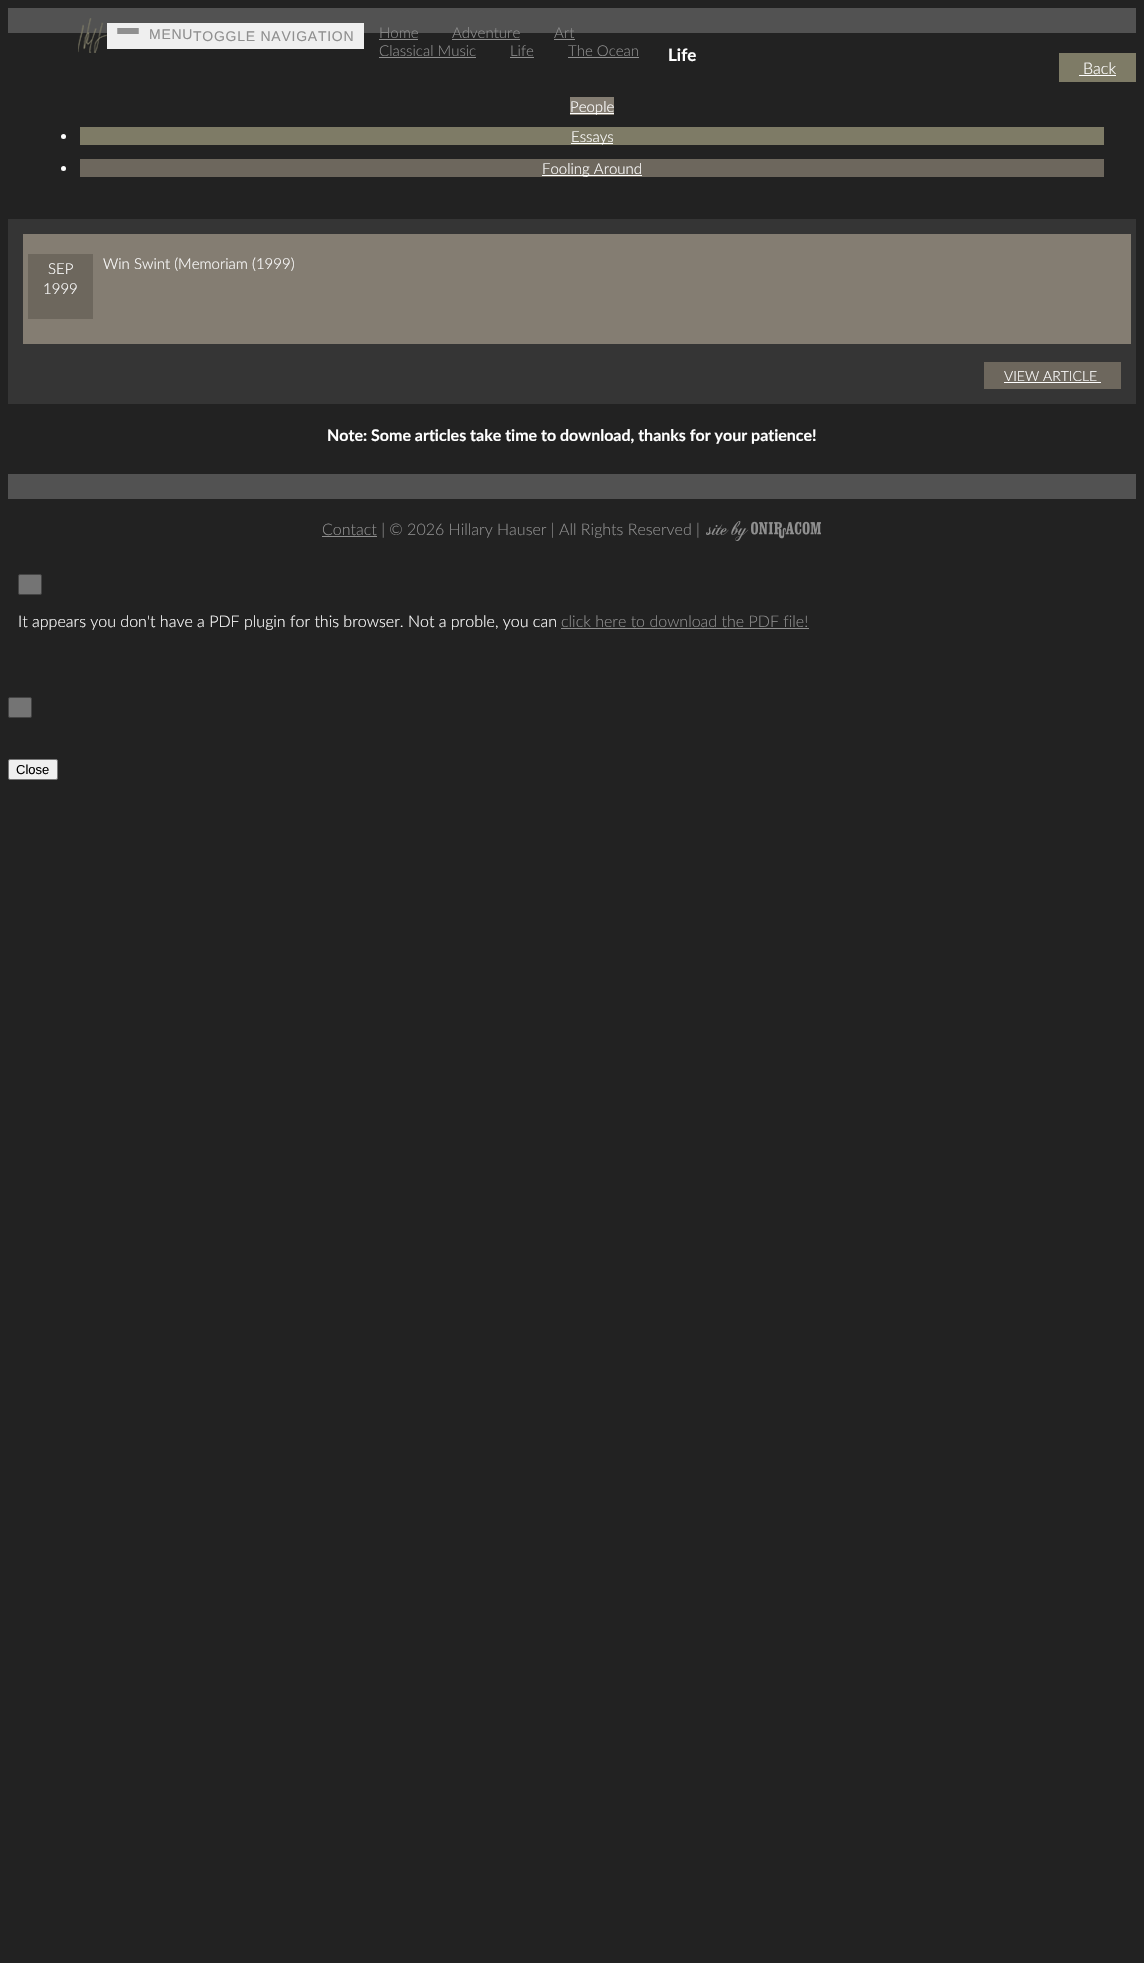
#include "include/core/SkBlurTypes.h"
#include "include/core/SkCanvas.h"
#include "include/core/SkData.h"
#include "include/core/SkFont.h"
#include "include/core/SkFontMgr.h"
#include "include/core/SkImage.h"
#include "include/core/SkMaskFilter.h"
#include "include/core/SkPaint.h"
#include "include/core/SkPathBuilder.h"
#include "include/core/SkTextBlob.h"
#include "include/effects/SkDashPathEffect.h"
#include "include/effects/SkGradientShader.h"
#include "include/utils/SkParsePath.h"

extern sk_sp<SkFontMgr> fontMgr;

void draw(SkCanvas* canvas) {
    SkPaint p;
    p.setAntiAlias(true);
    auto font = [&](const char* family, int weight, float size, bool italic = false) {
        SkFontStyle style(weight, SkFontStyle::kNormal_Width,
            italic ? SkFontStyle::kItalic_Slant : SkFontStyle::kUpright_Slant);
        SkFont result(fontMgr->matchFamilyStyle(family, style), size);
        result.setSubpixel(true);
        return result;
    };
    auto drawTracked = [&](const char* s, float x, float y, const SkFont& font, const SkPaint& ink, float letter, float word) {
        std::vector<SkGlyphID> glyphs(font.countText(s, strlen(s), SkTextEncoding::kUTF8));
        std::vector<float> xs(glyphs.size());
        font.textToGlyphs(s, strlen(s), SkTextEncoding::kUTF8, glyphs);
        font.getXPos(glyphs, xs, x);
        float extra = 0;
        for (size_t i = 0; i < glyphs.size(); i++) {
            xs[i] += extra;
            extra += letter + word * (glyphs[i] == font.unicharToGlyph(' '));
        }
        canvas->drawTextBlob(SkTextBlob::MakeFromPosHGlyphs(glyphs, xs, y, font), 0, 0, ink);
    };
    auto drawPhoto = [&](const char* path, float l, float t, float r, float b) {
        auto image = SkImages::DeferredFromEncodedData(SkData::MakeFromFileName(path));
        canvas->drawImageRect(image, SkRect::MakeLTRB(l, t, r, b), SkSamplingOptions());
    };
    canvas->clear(0xFF222222);
    p.setColor(0xFF525252);
    canvas->drawRect(SkRect::MakeLTRB(8, 8, 1136, 33), p);
    drawPhoto("media/1.png", 78, 18, 107, 53);
    p.setColor(0xFFEFEFEF);
    canvas->drawRect(SkRect::MakeLTRB(107, 23, 364, 49), p);
    p.setColor(0xFF8F8F8F);
    canvas->drawRoundRect(SkRect::MakeLTRB(117, 28, 139, 30), 1, 1, p);
    canvas->drawRoundRect(SkRect::MakeLTRB(117, 30, 139, 32), 1, 1, p);
    canvas->drawRoundRect(SkRect::MakeLTRB(117, 32, 139, 34), 1, 1, p);
    auto font1 = font("Liberation Sans", 400, 14);
    drawTracked("MENU", 149, 39, font1, p, 0.75f, 0);
    drawTracked("TOGGLE NAVIGATION", 193, 41, font1, p, 0.75f, 0);
    auto font2 = font("Lato", 300, 15);
    canvas->drawString("Home", 379, 38, font2, p);
    canvas->drawRect(SkRect::MakeLTRB(379, 39, 418, 40), p);
    canvas->drawString("Adventure", 452, 38, font2, p);
    canvas->drawRect(SkRect::MakeLTRB(452, 39, 520, 40), p);
    canvas->drawString("Art", 554, 38, font2, p);
    canvas->drawRect(SkRect::MakeLTRB(554, 39, 575, 40), p);
    canvas->drawString("Classical Music", 379, 56, font2, p);
    canvas->drawRect(SkRect::MakeLTRB(379, 57, 476, 58), p);
    canvas->drawString("Life", 510, 56, font2, p);
    canvas->drawRect(SkRect::MakeLTRB(510, 57, 534, 58), p);
    canvas->drawString("The Ocean", 568, 56, font2, p);
    canvas->drawRect(SkRect::MakeLTRB(568, 57, 639, 58), p);
    auto font3 = font("Lato", 700, 17);
    p.setColor(0xFFFFFFFF);
    canvas->drawString("Life", 668, 61, font3, p);
    p.setColor(0xFF7E7B66);
    canvas->drawRect(SkRect::MakeLTRB(1059, 53, 1136, 82), p);
    auto font4 = font("Lato", 300, 16);
    p.setColor(0xFFFFFFFF);
    canvas->drawString("Back", 1083, 74, font4, p);
    {
        const struct { float l, t, r, b; SkColor color; } items[] = {
            {1079, 75, 1116, 76, 0xFFFFFFFF},
            {570, 97, 614, 115, 0xFF847D72},
            {570, 113, 614, 114, 0xFFFFFFFF},
        };
        for (auto [l, t, r, b, color] : items) {
            p.setColor(color);
            canvas->drawRect(SkRect::MakeLTRB(l, t, r, b), p);
        }
    }
    canvas->drawString("People", 570, 112, font2, p);
    p.setColor(0xFF7E7B66);
    canvas->drawRect(SkRect::MakeLTRB(80, 127, 1104, 145), p);
    p.setColor(0xFFFFFFFF);
    canvas->drawCircle(63.5f, 136.5f, 2.5f, p);
    canvas->drawRect(SkRect::MakeLTRB(571, 143, 613, 144), p);
    canvas->drawString("Essays", 571, 142, font2, p);
    p.setColor(0xFF6D675D);
    canvas->drawRect(SkRect::MakeLTRB(80, 159, 1104, 177), p);
    p.setColor(0xFFFFFFFF);
    canvas->drawCircle(63.5f, 168.5f, 2.5f, p);
    canvas->drawRect(SkRect::MakeLTRB(542, 175, 642, 176), p);
    canvas->drawString("Fooling Around", 542, 174, font2, p);
    {
        const struct { float l, t, r, b; SkColor color; } items[] = {
            {8, 219, 1136, 404, 0xFF353535},
            {23, 234, 1131, 344, 0xFF847D72},
            {28, 254, 93, 319, 0xFF6D675D},
        };
        for (auto [l, t, r, b, color] : items) {
            p.setColor(color);
            canvas->drawRect(SkRect::MakeLTRB(l, t, r, b), p);
        }
    }
    p.setColor(0xFFFFFFFF);
    {
        const struct { const char* s; float x, y; } items[] = {
            {"SEP", 48, 274},
            {"1999", 43, 294},
            {"Win Swint (Memoriam (1999)", 103, 269},
        };
        for (auto [s, x, y] : items) {
            canvas->drawString(s, x, y, font2, p);
        }
    }
    p.setColor(0xFF6D675D);
    canvas->drawRect(SkRect::MakeLTRB(984, 362, 1121, 389), p);
    auto font5 = font("Lato", 300, 14);
    p.setColor(0xFFFFFFFF);
    canvas->drawString("VIEW ARTICLE", 1004, 381, font5, p);
    canvas->drawRect(SkRect::MakeLTRB(1004, 382, 1101, 383), p);
    auto font6 = font("Lato", 700, 16);
    canvas->drawString("Note: Some articles take time to download, thanks for your patience!", 327, 441, font6, p);
    p.setColor(0xFF525252);
    canvas->drawRect(SkRect::MakeLTRB(8, 474, 1136, 499), p);
    p.setColor(0xFF8F8F8F);
    canvas->drawRect(SkRect::MakeLTRB(322, 536, 377, 537), p);
    canvas->drawString("Contact | © 2026 Hillary Hauser | All Rights Reserved |", 322, 535, font4, p);
    drawPhoto("media/2.png", 706, 521, 821, 541);
    p.setColor(0xFF747474);
    canvas->drawRoundRect(SkRect::MakeLTRB(18.5f, 574.5f, 41.5f, 594.5f), 1.5f, 1.5f, p);
    p.setStyle(SkPaint::kStroke_Style);
    p.setStrokeWidth(1);
    p.setColor(0xFF444444);
    canvas->drawRoundRect(SkRect::MakeLTRB(18.5f, 574.5f, 41.5f, 594.5f), 1.5f, 1.5f, p);
    p.setStyle(SkPaint::kFill_Style);
    p.setColor(0xFFFFFFFF);
    canvas->drawString("It appears you don't have a PDF plugin for this browser. Not a proble, you can", 18, 627, font4, p);
    p.setColor(0xFF8F8F8F);
    canvas->drawString("click here to download the PDF file!", 561, 627, font4, p);
    canvas->drawRect(SkRect::MakeLTRB(561, 628, 809, 629), p);
    p.setColor(0xFF747474);
    canvas->drawRoundRect(SkRect::MakeLTRB(8.5f, 697.5f, 31.5f, 717.5f), 1.5f, 1.5f, p);
    p.setStyle(SkPaint::kStroke_Style);
    p.setColor(0xFF444444);
    canvas->drawRoundRect(SkRect::MakeLTRB(8.5f, 697.5f, 31.5f, 717.5f), 1.5f, 1.5f, p);
    p.setStyle(SkPaint::kFill_Style);
    p.setColor(0xFFEFEFEF);
    canvas->drawRoundRect(SkRect::MakeLTRB(8.5f, 759.5f, 57.5f, 779.5f), 1.5f, 1.5f, p);
    p.setStyle(SkPaint::kStroke_Style);
    p.setColor(0xFF767676);
    canvas->drawRoundRect(SkRect::MakeLTRB(8.5f, 759.5f, 57.5f, 779.5f), 1.5f, 1.5f, p);
    auto font7 = font("Liberation Sans", 400, 13);
    p.setStyle(SkPaint::kFill_Style);
    p.setColor(0xFF000000);
    canvas->drawString("Close", 16, 774, font7, p);
}
